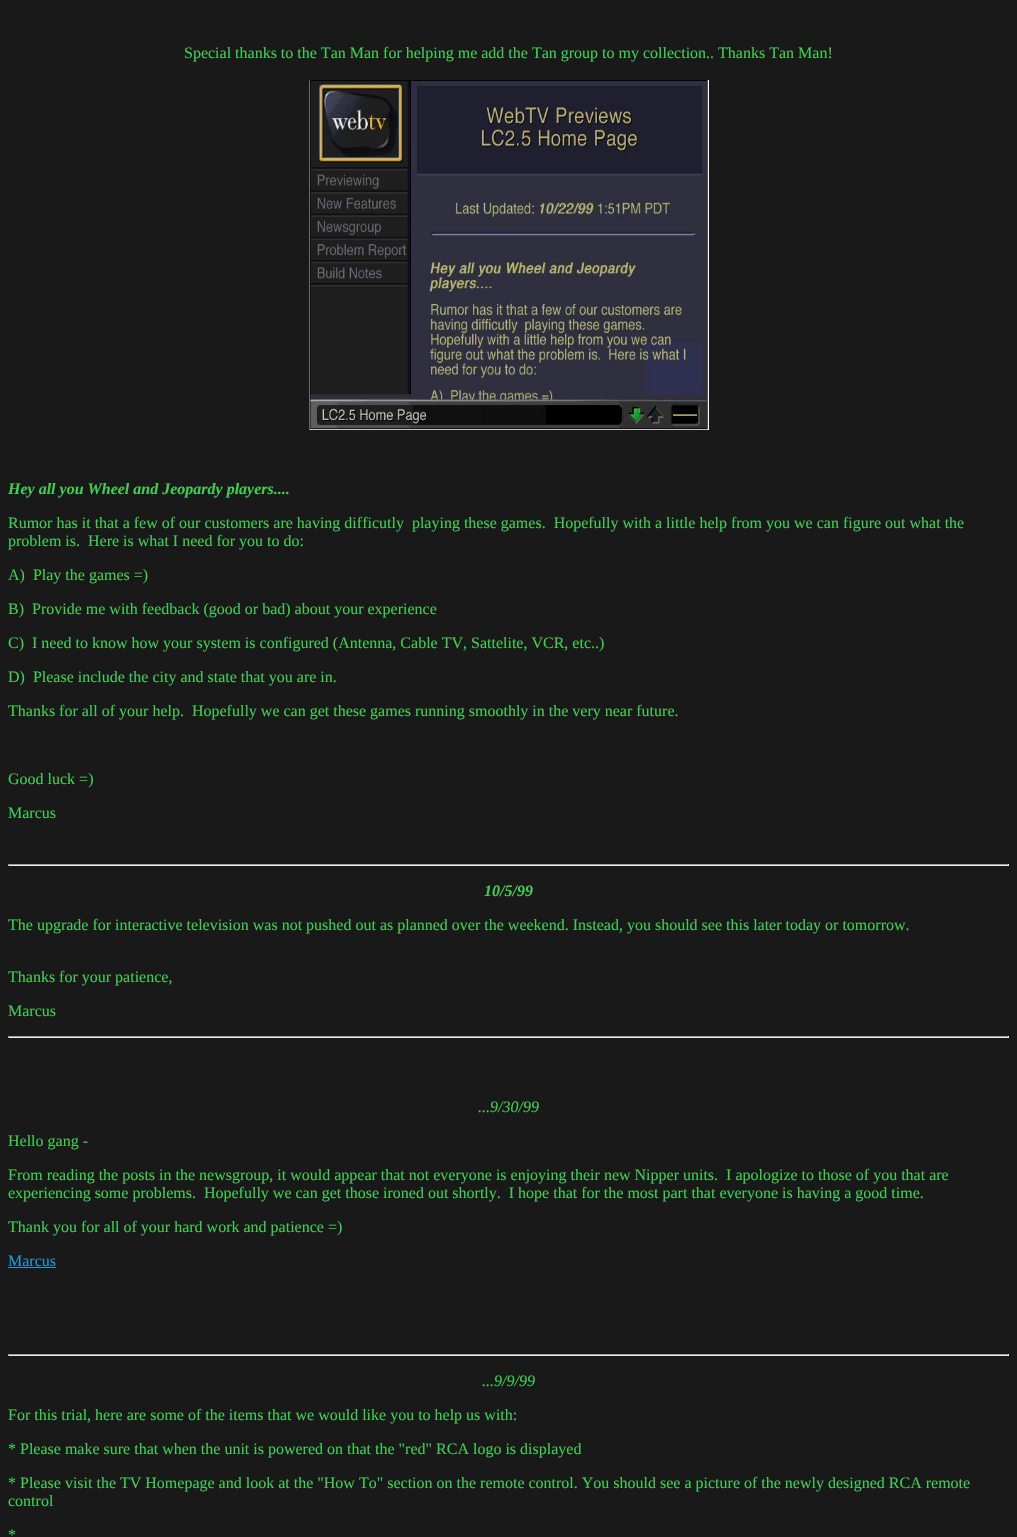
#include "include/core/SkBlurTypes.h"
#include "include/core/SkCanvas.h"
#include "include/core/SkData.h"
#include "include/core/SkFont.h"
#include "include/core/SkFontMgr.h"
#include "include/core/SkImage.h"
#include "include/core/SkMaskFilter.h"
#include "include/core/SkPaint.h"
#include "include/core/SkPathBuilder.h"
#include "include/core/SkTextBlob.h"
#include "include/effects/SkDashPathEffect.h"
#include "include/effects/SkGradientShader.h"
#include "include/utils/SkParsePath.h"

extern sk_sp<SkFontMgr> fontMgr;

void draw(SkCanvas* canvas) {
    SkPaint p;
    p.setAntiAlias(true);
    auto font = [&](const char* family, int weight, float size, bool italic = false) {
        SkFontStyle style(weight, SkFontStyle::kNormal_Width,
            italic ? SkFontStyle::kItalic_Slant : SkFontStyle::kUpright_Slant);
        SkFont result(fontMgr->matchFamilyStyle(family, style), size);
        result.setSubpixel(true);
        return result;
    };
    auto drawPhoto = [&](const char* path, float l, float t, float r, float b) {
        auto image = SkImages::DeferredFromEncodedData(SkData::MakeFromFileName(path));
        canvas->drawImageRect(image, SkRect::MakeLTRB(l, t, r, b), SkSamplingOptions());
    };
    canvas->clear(0xFF191919);
    auto font1 = font("Liberation Serif", 400, 16);
    p.setColor(0xFF42CC55);
    canvas->drawString("Special thanks to the Tan Man for helping me add the Tan group to my collection.. Thanks Tan Man!", 184, 58, font1, p);
    drawPhoto("media/1.png", 309, 80, 709, 430);
    auto font2 = font("Liberation Serif", 700, 16, true);
    canvas->drawString("Hey all you Wheel and Jeopardy players....", 8, 494, font2, p);
    {
        const struct { const char* s; float x, y; } items[] = {
            {"Rumor has it that a few of our customers are having difficutly  playing these games.  Hopefully with a little help from you we can figure out what the", 8, 528},
            {"problem is.  Here is what I need for you to do:", 8, 546},
            {"A)  Play the games =)", 8, 580},
            {"B)  Provide me with feedback (good or bad) about your experience", 8, 614},
            {"C)  I need to know how your system is configured (Antenna, Cable TV, Sattelite, VCR, etc..)", 8, 648},
            {"D)  Please include the city and state that you are in.", 8, 682},
            {"Thanks for all of your help.  Hopefully we can get these games running smoothly in the very near future.", 8, 716},
            {"Good luck =)", 8, 784},
            {"Marcus", 8, 818},
        };
        for (auto [s, x, y] : items) {
            canvas->drawString(s, x, y, font1, p);
        }
    }
    {
        const struct { float l, t, r, b; SkColor color; } items[] = {
            {8, 864, 1009, 865, 0xFF9F9F9F},
            {1008, 864, 1009, 866, 0xFFEEEEEE},
            {8, 865, 1009, 866, 0xFFEEEEEE},
            {8, 864, 9, 866, 0xFF9F9F9F},
        };
        for (auto [l, t, r, b, color] : items) {
            p.setColor(color);
            canvas->drawRect(SkRect::MakeLTRB(l, t, r, b), p);
        }
    }
    p.setColor(0xFF42CC55);
    canvas->drawString("10/5/99", 484, 896, font2, p);
    {
        const struct { const char* s; float x, y; } items[] = {
            {"The upgrade for interactive television was not pushed out as planned over the weekend. Instead, you should see this later today or tomorrow.", 8, 930},
            {"Thanks for your patience,", 8, 982},
            {"Marcus", 8, 1016},
        };
        for (auto [s, x, y] : items) {
            canvas->drawString(s, x, y, font1, p);
        }
    }
    {
        const struct { float l, t, r, b; SkColor color; } items[] = {
            {8, 1036, 1009, 1037, 0xFF9F9F9F},
            {1008, 1036, 1009, 1038, 0xFFEEEEEE},
            {8, 1037, 1009, 1038, 0xFFEEEEEE},
            {8, 1036, 9, 1038, 0xFF9F9F9F},
        };
        for (auto [l, t, r, b, color] : items) {
            p.setColor(color);
            canvas->drawRect(SkRect::MakeLTRB(l, t, r, b), p);
        }
    }
    auto font3 = font("Liberation Serif", 400, 16, true);
    p.setColor(0xFF42CC55);
    canvas->drawString("...9/30/99", 478, 1112, font3, p);
    {
        const struct { const char* s; float x, y; } items[] = {
            {"Hello gang -", 8, 1146},
            {"From reading the posts in the newsgroup, it would appear that not everyone is enjoying their new Nipper units.  I apologize to those of you that are", 8, 1180},
            {"experiencing some problems.  Hopefully we can get those ironed out shortly.  I hope that for the most part that everyone is having a good time.", 8, 1198},
            {"Thank you for all of your hard work and patience =)", 8, 1232},
        };
        for (auto [s, x, y] : items) {
            canvas->drawString(s, x, y, font1, p);
        }
    }
    p.setColor(0xFF189CD6);
    canvas->drawString("Marcus", 8, 1266, font1, p);
    {
        const struct { float l, t, r, b; SkColor color; } items[] = {
            {8, 1267, 56, 1268, 0xFF189CD6},
            {8, 1354, 1009, 1355, 0xFF9F9F9F},
            {1008, 1354, 1009, 1356, 0xFFEEEEEE},
            {8, 1355, 1009, 1356, 0xFFEEEEEE},
            {8, 1354, 9, 1356, 0xFF9F9F9F},
        };
        for (auto [l, t, r, b, color] : items) {
            p.setColor(color);
            canvas->drawRect(SkRect::MakeLTRB(l, t, r, b), p);
        }
    }
    p.setColor(0xFF42CC55);
    canvas->drawString("...9/9/99", 482, 1386, font3, p);
    {
        const struct { const char* s; float x, y; } items[] = {
            {"For this trial, here are some of the items that we would like you to help us with:", 8, 1420},
            {"* Please make sure that when the unit is powered on that the \"red\" RCA logo is displayed", 8, 1454},
            {"* Please visit the TV Homepage and look at the \"How To\" section on the remote control. You should see a picture of the newly designed RCA remote", 8, 1488},
            {"control", 8, 1506},
            {"*", 8, 1540},
        };
        for (auto [s, x, y] : items) {
            canvas->drawString(s, x, y, font1, p);
        }
    }
}
